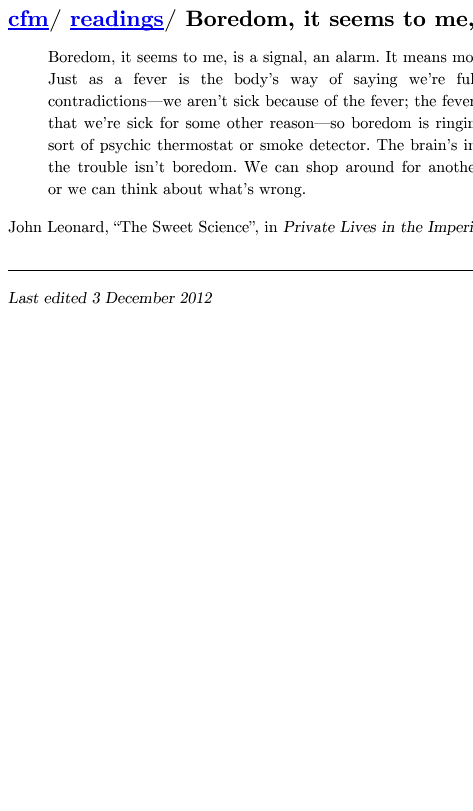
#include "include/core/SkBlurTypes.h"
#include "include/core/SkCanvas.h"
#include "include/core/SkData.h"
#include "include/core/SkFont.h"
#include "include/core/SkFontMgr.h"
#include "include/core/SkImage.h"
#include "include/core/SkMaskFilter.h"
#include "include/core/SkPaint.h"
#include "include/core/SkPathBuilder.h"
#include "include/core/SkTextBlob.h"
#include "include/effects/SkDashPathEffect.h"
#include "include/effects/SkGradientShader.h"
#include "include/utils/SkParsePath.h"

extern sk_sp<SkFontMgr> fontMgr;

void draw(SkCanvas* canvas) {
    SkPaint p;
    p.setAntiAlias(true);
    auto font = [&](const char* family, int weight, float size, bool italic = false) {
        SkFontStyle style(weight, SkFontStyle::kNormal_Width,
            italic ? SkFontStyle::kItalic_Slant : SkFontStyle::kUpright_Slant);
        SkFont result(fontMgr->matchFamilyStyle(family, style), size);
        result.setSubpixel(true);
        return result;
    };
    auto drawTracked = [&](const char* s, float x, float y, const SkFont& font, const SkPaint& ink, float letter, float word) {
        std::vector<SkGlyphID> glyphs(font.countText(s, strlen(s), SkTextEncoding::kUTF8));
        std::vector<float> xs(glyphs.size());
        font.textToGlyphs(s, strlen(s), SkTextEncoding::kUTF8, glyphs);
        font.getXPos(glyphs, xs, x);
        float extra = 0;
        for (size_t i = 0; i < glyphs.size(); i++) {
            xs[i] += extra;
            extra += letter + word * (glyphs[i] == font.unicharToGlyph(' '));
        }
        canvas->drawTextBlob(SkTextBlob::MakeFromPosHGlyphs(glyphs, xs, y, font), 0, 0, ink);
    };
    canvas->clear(0xFFFFFFFF);
    auto font1 = font("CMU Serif", 700, 22.4f);
    p.setColor(0xFF0000EE);
    canvas->drawString("cfm", 8, 26, font1, p);
    p.setColor(0xFF000000);
    canvas->drawString("/", 49, 26, font1, p);
    p.setColor(0xFF0000EE);
    canvas->drawRect(SkRect::MakeLTRB(8, 28, 49, 30), p);
    canvas->drawRect(SkRect::MakeLTRB(70, 28, 164, 30), p);
    canvas->drawString("readings", 70, 26, font1, p);
    p.setColor(0xFF000000);
    canvas->drawString("/ Boredom, it seems to me,", 164, 26, font1, p);
    auto font2 = font("CMU Serif", 400, 16);
    drawTracked("Boredom, it seems to me, is a signal, an alarm. It means mo", 48, 62, font2, p, 0, 0.25f);
    drawTracked("Just as a fever is the body’s way of saying we’re ful", 48, 84, font2, p, 0, 5.9f);
    drawTracked("contradictions—we aren’t sick because of the fever; the fever", 48, 106, font2, p, 0, 0.25f);
    drawTracked("that we’re sick for some other reason—so boredom is ringin", 48, 128, font2, p, 0, 1.25f);
    drawTracked("sort of psychic thermostat or smoke detector. The brain’s in", 48, 150, font2, p, 0, 0.75f);
    drawTracked("the trouble isn’t boredom.", 48, 172, font2, p, 0, 2);
    drawTracked("We can shop around for anothe", 244, 172, font2, p, 0, 2);
    canvas->drawString("or we can think about what’s wrong.", 48, 194, font2, p);
    canvas->drawString("John Leonard, “The Sweet Science”, in", 8, 232, font2, p);
    auto font3 = font("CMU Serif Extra", 400, 16, true);
    canvas->drawString("Private Lives in the Imperi", 283, 232, font3, p);
    canvas->drawRect(SkRect::MakeLTRB(8, 270, 473, 271), p);
    canvas->drawString("Last edited 3 December 2012", 8, 303, font3, p);
}
